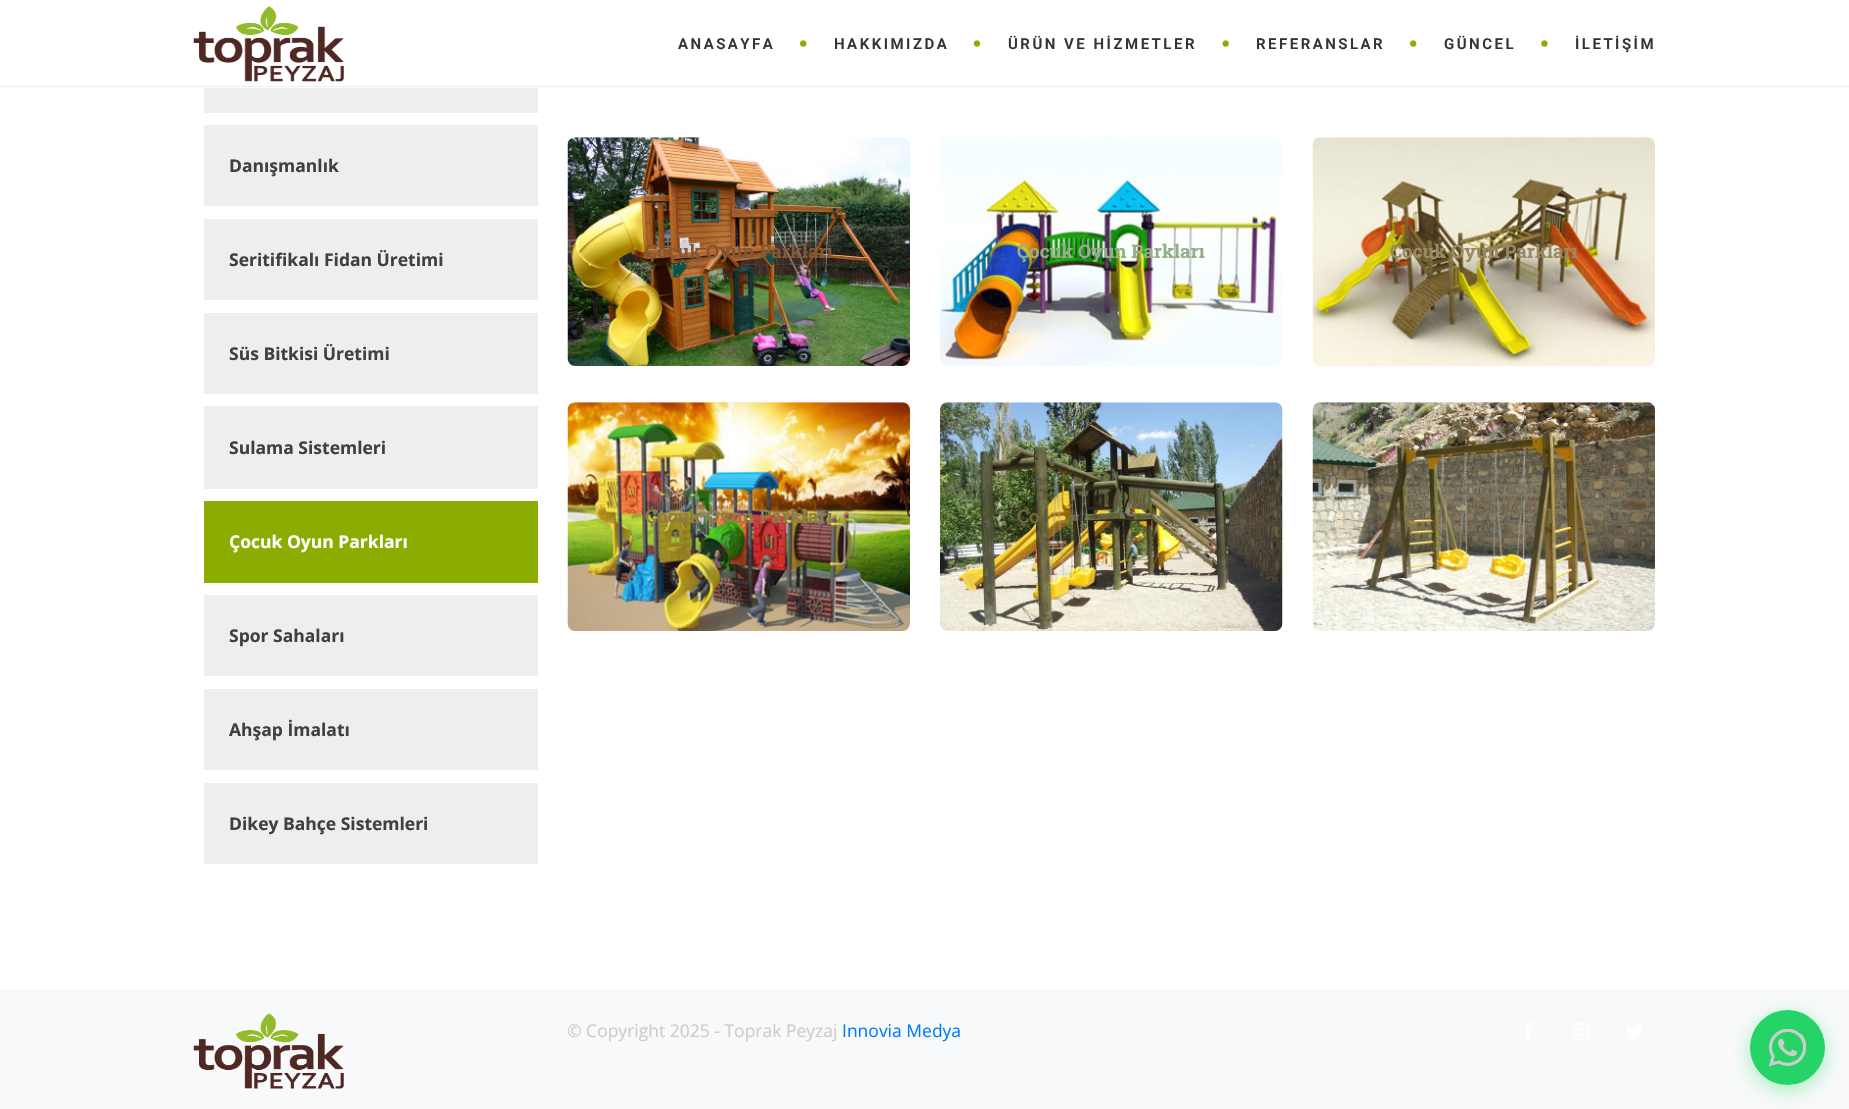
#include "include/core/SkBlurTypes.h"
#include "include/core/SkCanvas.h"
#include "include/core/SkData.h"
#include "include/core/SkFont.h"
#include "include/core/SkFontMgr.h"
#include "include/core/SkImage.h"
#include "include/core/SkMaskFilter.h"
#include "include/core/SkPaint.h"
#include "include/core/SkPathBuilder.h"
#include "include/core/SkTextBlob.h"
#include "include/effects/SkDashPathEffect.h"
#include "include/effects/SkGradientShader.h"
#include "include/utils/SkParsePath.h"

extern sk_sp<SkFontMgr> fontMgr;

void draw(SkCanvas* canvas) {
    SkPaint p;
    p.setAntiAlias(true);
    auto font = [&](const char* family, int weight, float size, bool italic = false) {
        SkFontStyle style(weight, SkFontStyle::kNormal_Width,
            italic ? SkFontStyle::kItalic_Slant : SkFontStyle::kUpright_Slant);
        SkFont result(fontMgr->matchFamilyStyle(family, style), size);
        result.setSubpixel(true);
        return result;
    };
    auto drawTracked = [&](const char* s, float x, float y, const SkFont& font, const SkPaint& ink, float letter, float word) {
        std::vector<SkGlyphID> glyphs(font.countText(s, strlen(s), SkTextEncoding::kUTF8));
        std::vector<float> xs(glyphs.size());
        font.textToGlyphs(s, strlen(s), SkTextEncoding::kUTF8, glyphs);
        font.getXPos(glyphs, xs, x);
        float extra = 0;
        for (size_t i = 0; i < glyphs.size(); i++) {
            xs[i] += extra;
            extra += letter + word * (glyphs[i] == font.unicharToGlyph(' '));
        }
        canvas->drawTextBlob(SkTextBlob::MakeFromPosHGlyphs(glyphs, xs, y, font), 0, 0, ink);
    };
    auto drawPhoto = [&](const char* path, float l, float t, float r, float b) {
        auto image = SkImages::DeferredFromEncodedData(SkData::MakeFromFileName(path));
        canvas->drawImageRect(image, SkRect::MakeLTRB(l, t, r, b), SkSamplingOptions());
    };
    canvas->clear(0xFFFFFFFF);
    p.setColor(0xFFEEEEEE);
    canvas->drawRect(SkRect::MakeLTRB(0, 86, 1849, 87), p);
    drawPhoto("media/1.png", 193, 6, 344, 82);
    auto font1 = font("Roboto", 600, 15);
    p.setColor(0xFF333333);
    drawTracked("ANASAYFA", 678, 49, font1, p, 2.5f, 0);
    drawPhoto("media/2.png", 800, 40, 807, 47);
    drawTracked("HAKKIMIZDA", 834, 49, font1, p, 2.5f, 0);
    drawPhoto("media/3.png", 973, 40, 981, 47);
    drawTracked("ÜRÜN VE HİZMETLER", 1008, 49, font1, p, 2.5f, 0);
    drawPhoto("media/4.png", 1222, 40, 1229, 47);
    drawTracked("REFERANSLAR", 1256, 49, font1, p, 2.5f, 0);
    drawPhoto("media/2.png", 1410, 40, 1417, 47);
    drawTracked("GÜNCEL", 1444, 49, font1, p, 2.5f, 0);
    drawPhoto("media/5.png", 1541, 40, 1548, 47);
    drawTracked("İLETİŞİM", 1575, 49, font1, p, 2.5f, 0);
    p.setColor(0xFFEEEEEE);
    canvas->drawRect(SkRect::MakeLTRB(204, 88, 538, 113), p);
    canvas->drawRect(SkRect::MakeLTRB(204, 125, 538, 206), p);
    auto font2 = font("Open Sans", 700, 17.5f);
    p.setColor(0xFF404040);
    canvas->drawString("Danışmanlık", 229, 172, font2, p);
    p.setColor(0xFFEEEEEE);
    canvas->drawRect(SkRect::MakeLTRB(204, 219, 538, 300), p);
    p.setColor(0xFF404040);
    canvas->drawString("Seritifikalı Fidan Üretimi", 229, 266, font2, p);
    p.setColor(0xFFEEEEEE);
    canvas->drawRect(SkRect::MakeLTRB(204, 313, 538, 394), p);
    p.setColor(0xFF404040);
    canvas->drawString("Süs Bitkisi Üretimi", 229, 360, font2, p);
    p.setColor(0xFFEEEEEE);
    canvas->drawRect(SkRect::MakeLTRB(204, 406, 538, 489), p);
    p.setColor(0xFF404040);
    canvas->drawString("Sulama Sistemleri", 229, 454, font2, p);
    p.setColor(0xFF8BAD01);
    canvas->drawRect(SkRect::MakeLTRB(204, 501, 538, 583), p);
    p.setColor(0xFFFFFFFF);
    canvas->drawString("Çocuk Oyun Parkları", 229, 548, font2, p);
    p.setColor(0xFFEEEEEE);
    canvas->drawRect(SkRect::MakeLTRB(204, 595, 538, 676), p);
    p.setColor(0xFF404040);
    canvas->drawString("Spor Sahaları", 229, 642, font2, p);
    p.setColor(0xFFEEEEEE);
    canvas->drawRect(SkRect::MakeLTRB(204, 689, 538, 770), p);
    p.setColor(0xFF404040);
    canvas->drawString("Ahşap İmalatı", 229, 736, font2, p);
    p.setColor(0xFFEEEEEE);
    canvas->drawRect(SkRect::MakeLTRB(204, 783, 538, 864), p);
    p.setColor(0xFF404040);
    canvas->drawString("Dikey Bahçe Sistemleri", 229, 830, font2, p);
    drawPhoto("media/6.png", 567, 137, 910, 366);
    auto font3 = font("Roboto Slab", 700, 18.75f);
    p.setColor(0xFF835835);
    canvas->drawString("Çocuk Oyun Parkları", 645, 258, font3, p);
    drawPhoto("media/7.png", 940, 137, 1282, 366);
    p.setColor(0xFF94AE89);
    canvas->drawString("Çocuk Oyun Parkları", 1017, 258, font3, p);
    drawPhoto("media/8.png", 1312, 137, 1655, 366);
    p.setColor(0xFF9B8964);
    canvas->drawString("Çocuk Oyun Parkları", 1390, 258, font3, p);
    drawPhoto("media/9.png", 567, 402, 910, 631);
    p.setColor(0xFF947A44);
    canvas->drawString("Çocuk Oyun Parkları", 645, 523, font3, p);
    drawPhoto("media/10.png", 940, 402, 1283, 631);
    p.setColor(0xFF6F673A);
    canvas->drawString("Ço", 1017, 523, font3, p);
    drawPhoto("media/11.png", 1312, 402, 1655, 631);
    p.setColor(0xFF756C4E);
    canvas->drawString("l", 1547, 523, font3, p);
    p.setColor(0xFFF8F9FA);
    canvas->drawRect(SkRect::MakeLTRB(0, 989, 1849, 1109), p);
    drawPhoto("media/12.png", 193, 1013, 344, 1089);
    auto font4 = font("Open Sans", 400, 17.5f);
    p.setColor(0xFFCCCCCC);
    canvas->drawString("© Copyright 2025 - Toprak Peyzaj", 567, 1037, font4, p);
    p.setColor(0xFF007BFF);
    canvas->drawString("Innovia Medya", 842, 1037, font4, p);
    drawPhoto("media/13.png", 1524, 1022, 1533, 1040);
    drawPhoto("media/14.png", 1573, 1023, 1590, 1040);
    drawPhoto("media/15.png", 1626, 1025, 1642, 1039);
    p.setColor(0x6625D366);
    p.setMaskFilter(SkMaskFilter::MakeBlur(kNormal_SkBlurStyle, 9.5f));
    canvas->drawRoundRect(SkRect::MakeLTRB(1750, 1015, 1825, 1090), 37.5f, 37.5f, p);
    p.setMaskFilter(nullptr);
    p.setColor(0xFF25D366);
    canvas->drawCircle(1787.5f, 1047.5f, 37.5f, p);
    drawPhoto("media/16.png", 1769, 1029, 1806, 1066);
}
